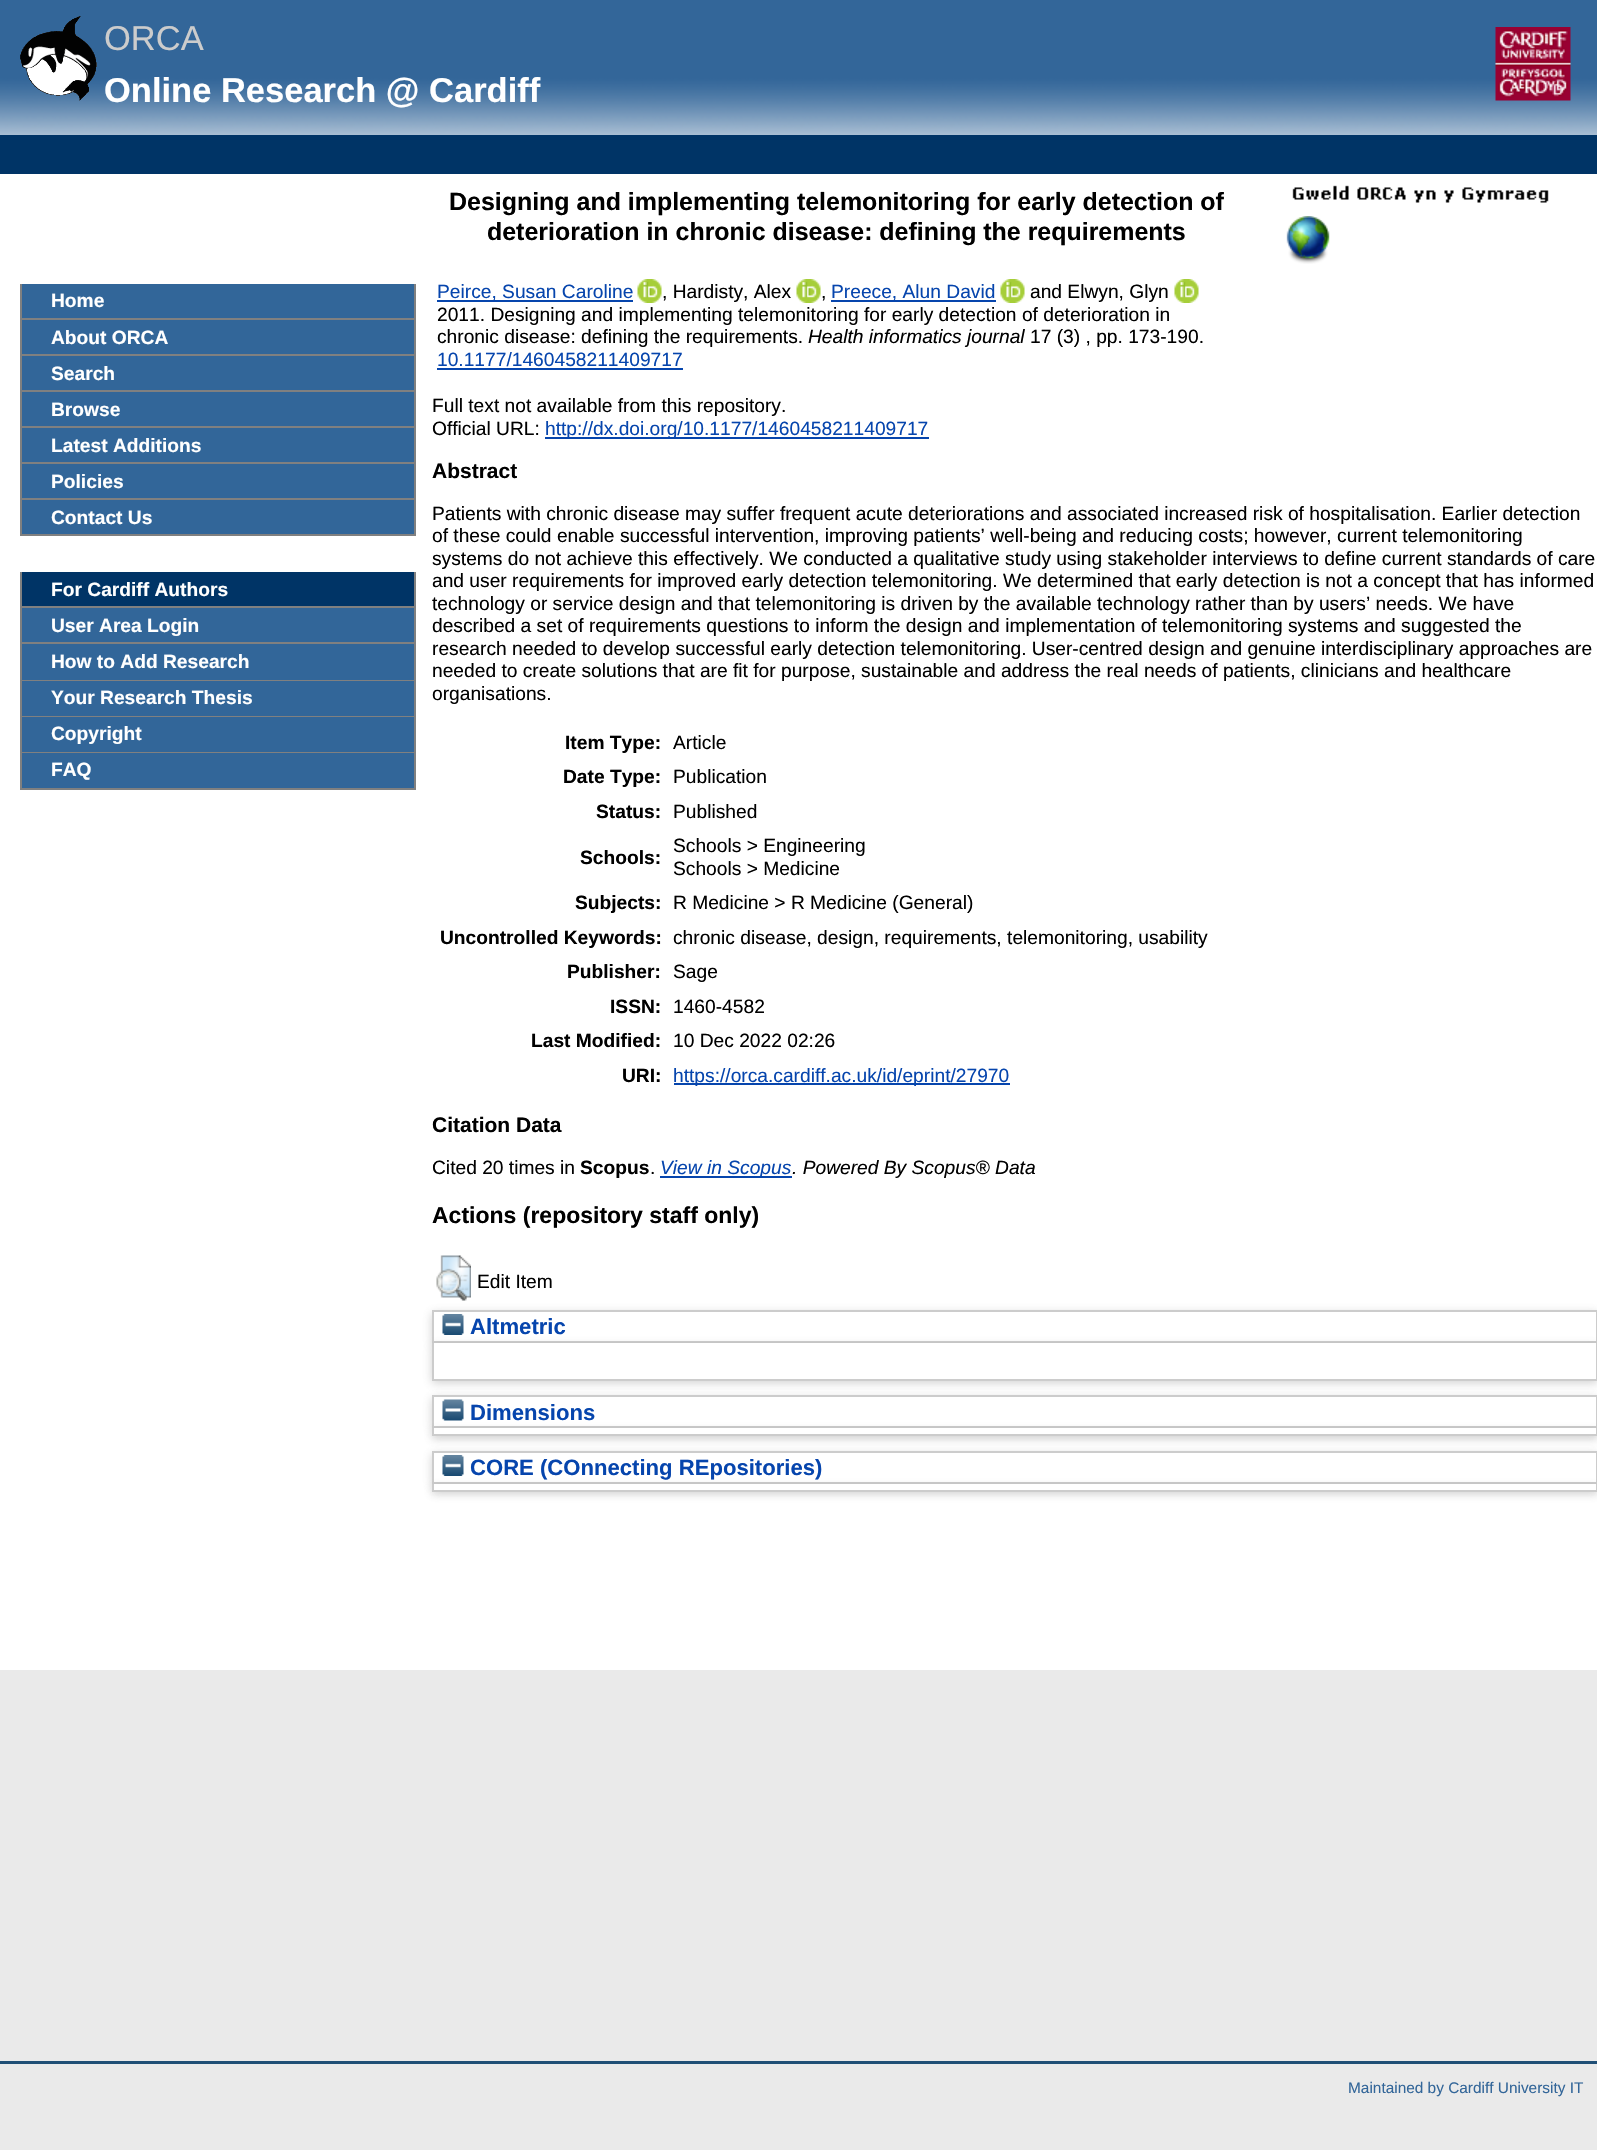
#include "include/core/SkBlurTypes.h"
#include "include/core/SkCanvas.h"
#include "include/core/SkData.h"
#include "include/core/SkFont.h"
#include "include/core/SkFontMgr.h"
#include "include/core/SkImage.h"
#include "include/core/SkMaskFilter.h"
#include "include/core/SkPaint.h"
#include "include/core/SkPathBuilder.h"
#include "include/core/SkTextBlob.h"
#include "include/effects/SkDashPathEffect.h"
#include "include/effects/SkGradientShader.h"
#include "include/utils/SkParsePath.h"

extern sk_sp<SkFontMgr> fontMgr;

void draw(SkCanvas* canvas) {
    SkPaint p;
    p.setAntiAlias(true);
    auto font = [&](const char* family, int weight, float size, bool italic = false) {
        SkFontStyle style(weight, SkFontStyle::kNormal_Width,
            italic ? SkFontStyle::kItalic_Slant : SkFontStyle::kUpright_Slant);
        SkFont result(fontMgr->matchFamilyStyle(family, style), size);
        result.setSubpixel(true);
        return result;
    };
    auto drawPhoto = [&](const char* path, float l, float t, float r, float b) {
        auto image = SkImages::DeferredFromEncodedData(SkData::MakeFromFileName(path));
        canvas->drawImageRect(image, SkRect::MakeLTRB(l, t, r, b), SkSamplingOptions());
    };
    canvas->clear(0xFFEAEAEA);
    p.setColor(0xFFFFFFFF);
    canvas->drawRect(SkRect::MakeLTRB(0, 174, 1597, 1670), p);
    drawPhoto("media/1.png", 0, 0, 1597, 135);
    drawPhoto("media/2.png", 20, 16, 97, 101);
    auto font1 = font("Liberation Sans", 400, 34.5f);
    p.setColor(0xFFCCCCCC);
    canvas->drawString("ORCA", 104, 50, font1, p);
    drawPhoto("media/3.png", 1495, 27, 1571, 101);
    auto font2 = font("Liberation Sans", 700, 34.5f);
    p.setColor(0xFFFFFFFF);
    canvas->drawString("Online Research @ Cardiff", 104, 102, font2, p);
    p.setColor(0xFF003466);
    canvas->drawRect(SkRect::MakeLTRB(0, 135, 1597, 174), p);
    drawPhoto("media/4.png", 1292, 185, 1549, 203);
    drawPhoto("media/5.png", 1286, 216, 1330, 264);
    {
        const struct { float l, t, r, b; SkColor color; } items[] = {
            {22, 284, 414, 318, 0xFF326699},
            {414, 284, 416, 536, 0xFF808080},
            {20, 318, 416, 320, 0xFF808080},
            {20, 284, 22, 320, 0xFF808080},
        };
        for (auto [l, t, r, b, color] : items) {
            p.setColor(color);
            canvas->drawRect(SkRect::MakeLTRB(l, t, r, b), p);
        }
    }
    auto font3 = font("Liberation Sans", 700, 19.2f);
    p.setColor(0xFFFFFFFF);
    canvas->drawString("Home", 51, 307, font3, p);
    {
        const struct { float l, t, r, b; SkColor color; } items[] = {
            {22, 320, 414, 354, 0xFF326699},
            {20, 354, 416, 356, 0xFF808080},
            {20, 320, 22, 356, 0xFF808080},
        };
        for (auto [l, t, r, b, color] : items) {
            p.setColor(color);
            canvas->drawRect(SkRect::MakeLTRB(l, t, r, b), p);
        }
    }
    p.setColor(0xFFFFFFFF);
    canvas->drawString("About ORCA", 51, 344, font3, p);
    {
        const struct { float l, t, r, b; SkColor color; } items[] = {
            {22, 356, 414, 390, 0xFF326699},
            {20, 390, 416, 392, 0xFF808080},
            {20, 356, 22, 392, 0xFF808080},
        };
        for (auto [l, t, r, b, color] : items) {
            p.setColor(color);
            canvas->drawRect(SkRect::MakeLTRB(l, t, r, b), p);
        }
    }
    p.setColor(0xFFFFFFFF);
    canvas->drawString("Search", 51, 380, font3, p);
    {
        const struct { float l, t, r, b; SkColor color; } items[] = {
            {22, 392, 414, 426, 0xFF326699},
            {20, 426, 416, 428, 0xFF808080},
            {20, 392, 22, 428, 0xFF808080},
        };
        for (auto [l, t, r, b, color] : items) {
            p.setColor(color);
            canvas->drawRect(SkRect::MakeLTRB(l, t, r, b), p);
        }
    }
    p.setColor(0xFFFFFFFF);
    canvas->drawString("Browse", 51, 416, font3, p);
    {
        const struct { float l, t, r, b; SkColor color; } items[] = {
            {22, 428, 414, 462, 0xFF326699},
            {20, 462, 416, 464, 0xFF808080},
            {20, 428, 22, 464, 0xFF808080},
        };
        for (auto [l, t, r, b, color] : items) {
            p.setColor(color);
            canvas->drawRect(SkRect::MakeLTRB(l, t, r, b), p);
        }
    }
    p.setColor(0xFFFFFFFF);
    canvas->drawString("Latest Additions", 51, 452, font3, p);
    {
        const struct { float l, t, r, b; SkColor color; } items[] = {
            {22, 464, 414, 498, 0xFF326699},
            {20, 498, 416, 500, 0xFF808080},
            {20, 464, 22, 500, 0xFF808080},
        };
        for (auto [l, t, r, b, color] : items) {
            p.setColor(color);
            canvas->drawRect(SkRect::MakeLTRB(l, t, r, b), p);
        }
    }
    p.setColor(0xFFFFFFFF);
    canvas->drawString("Policies", 51, 488, font3, p);
    {
        const struct { float l, t, r, b; SkColor color; } items[] = {
            {22, 500, 414, 534, 0xFF326699},
            {20, 534, 416, 536, 0xFF808080},
            {20, 500, 22, 536, 0xFF808080},
        };
        for (auto [l, t, r, b, color] : items) {
            p.setColor(color);
            canvas->drawRect(SkRect::MakeLTRB(l, t, r, b), p);
        }
    }
    p.setColor(0xFFFFFFFF);
    canvas->drawString("Contact Us", 51, 524, font3, p);
    {
        const struct { float l, t, r, b; SkColor color; } items[] = {
            {22, 572, 414, 606, 0xFF003466},
            {414, 572, 416, 789, 0xFF808080},
            {20, 606, 416, 608, 0xFF808080},
            {20, 572, 22, 608, 0xFF808080},
        };
        for (auto [l, t, r, b, color] : items) {
            p.setColor(color);
            canvas->drawRect(SkRect::MakeLTRB(l, t, r, b), p);
        }
    }
    p.setColor(0xFFFFFFFF);
    canvas->drawString("For Cardiff Authors", 51, 596, font3, p);
    {
        const struct { float l, t, r, b; SkColor color; } items[] = {
            {22, 608, 414, 642, 0xFF326699},
            {20, 642, 416, 644, 0xFF808080},
            {20, 608, 22, 644, 0xFF808080},
        };
        for (auto [l, t, r, b, color] : items) {
            p.setColor(color);
            canvas->drawRect(SkRect::MakeLTRB(l, t, r, b), p);
        }
    }
    p.setColor(0xFFFFFFFF);
    canvas->drawString("User Area Login", 51, 632, font3, p);
    {
        const struct { float l, t, r, b; SkColor color; } items[] = {
            {22, 644, 414, 680, 0xFF326699},
            {20, 680, 416, 681, 0xFF808080},
            {20, 644, 22, 681, 0xFF808080},
        };
        for (auto [l, t, r, b, color] : items) {
            p.setColor(color);
            canvas->drawRect(SkRect::MakeLTRB(l, t, r, b), p);
        }
    }
    p.setColor(0xFFFFFFFF);
    canvas->drawString("How to Add Research", 51, 668, font3, p);
    {
        const struct { float l, t, r, b; SkColor color; } items[] = {
            {22, 681, 414, 716, 0xFF326699},
            {20, 716, 416, 717, 0xFF808080},
            {20, 681, 22, 717, 0xFF808080},
        };
        for (auto [l, t, r, b, color] : items) {
            p.setColor(color);
            canvas->drawRect(SkRect::MakeLTRB(l, t, r, b), p);
        }
    }
    p.setColor(0xFFFFFFFF);
    canvas->drawString("Your Research Thesis", 51, 704, font3, p);
    {
        const struct { float l, t, r, b; SkColor color; } items[] = {
            {22, 717, 414, 752, 0xFF326699},
            {20, 752, 416, 753, 0xFF808080},
            {20, 717, 22, 753, 0xFF808080},
        };
        for (auto [l, t, r, b, color] : items) {
            p.setColor(color);
            canvas->drawRect(SkRect::MakeLTRB(l, t, r, b), p);
        }
    }
    p.setColor(0xFFFFFFFF);
    canvas->drawString("Copyright", 51, 740, font3, p);
    {
        const struct { float l, t, r, b; SkColor color; } items[] = {
            {22, 753, 414, 788, 0xFF326699},
            {20, 788, 416, 790, 0xFF808080},
            {20, 753, 22, 789, 0xFF808080},
        };
        for (auto [l, t, r, b, color] : items) {
            p.setColor(color);
            canvas->drawRect(SkRect::MakeLTRB(l, t, r, b), p);
        }
    }
    p.setColor(0xFFFFFFFF);
    canvas->drawString("FAQ", 51, 776, font3, p);
    auto font4 = font("Liberation Sans", 700, 24.95f);
    p.setColor(0xFF000000);
    canvas->drawString("Designing and implementing telemonitoring for early detection of", 449, 210, font4, p);
    canvas->drawString("deterioration in chronic disease: defining the requirements", 487, 240, font4, p);
    p.setColor(0xFF0645AD);
    canvas->drawRect(SkRect::MakeLTRB(437, 300, 633, 302), p);
    auto font5 = font("Liberation Sans", 400, 19.2f);
    canvas->drawString("Peirce, Susan Caroline", 437, 298, font5, p);
    drawPhoto("media/6.png", 637, 279, 662, 303);
    p.setColor(0xFF000000);
    canvas->drawString(", Hardisty, Alex", 662, 298, font5, p);
    drawPhoto("media/7.png", 796, 279, 821, 303);
    canvas->drawString(",", 821, 298, font5, p);
    p.setColor(0xFF0645AD);
    canvas->drawRect(SkRect::MakeLTRB(831, 300, 996, 302), p);
    canvas->drawString("Preece, Alun David", 831, 298, font5, p);
    drawPhoto("media/7.png", 1000, 279, 1025, 303);
    p.setColor(0xFF000000);
    canvas->drawString("and Elwyn, Glyn", 1030, 298, font5, p);
    drawPhoto("media/6.png", 1174, 279, 1199, 303);
    canvas->drawString("2011. Designing and implementing telemonitoring for early detection of deterioration in", 437, 321, font5, p);
    canvas->drawString("chronic disease: defining the requirements.", 437, 343, font5, p);
    auto font6 = font("Liberation Sans", 400, 19.2f, true);
    canvas->drawString("Health informatics journal", 808, 343, font6, p);
    canvas->drawString("17 (3) , pp. 173-190.", 1030, 343, font5, p);
    p.setColor(0xFF0645AD);
    canvas->drawString("10.1177/1460458211409717", 437, 366, font5, p);
    canvas->drawRect(SkRect::MakeLTRB(437, 368, 683, 370), p);
    p.setColor(0xFF000000);
    canvas->drawString("Full text not available from this repository.", 432, 412, font5, p);
    canvas->drawString("Official URL:", 432, 435, font5, p);
    p.setColor(0xFF0645AD);
    canvas->drawRect(SkRect::MakeLTRB(545, 437, 929, 439), p);
    canvas->drawString("http://dx.doi.org/10.1177/1460458211409717", 545, 435, font5, p);
    auto font7 = font("Liberation Sans", 700, 21);
    p.setColor(0xFF000000);
    canvas->drawString("Abstract", 432, 478, font7, p);
    {
        const struct { const char* s; float x, y; } items[] = {
            {"Patients with chronic disease may suffer frequent acute deteriorations and associated increased risk of hospitalisation. Earlier detection", 432, 520},
            {"of these could enable successful intervention, improving patients’ well-being and reducing costs; however, current telemonitoring", 432, 542},
            {"systems do not achieve this effectively. We conducted a qualitative study using stakeholder interviews to define current standards of care", 432, 565},
            {"and user requirements for improved early detection telemonitoring. We determined that early detection is not a concept that has informed", 432, 587},
            {"technology or service design and that telemonitoring is driven by the available technology rather than by users’ needs. We have", 432, 610},
            {"described a set of requirements questions to inform the design and implementation of telemonitoring systems and suggested the", 432, 632},
            {"research needed to develop successful early detection telemonitoring. User-centred design and genuine interdisciplinary approaches are", 432, 655},
            {"needed to create solutions that are fit for purpose, sustainable and address the real needs of patients, clinicians and healthcare", 432, 677},
            {"organisations.", 432, 700},
        };
        for (auto [s, x, y] : items) {
            canvas->drawString(s, x, y, font5, p);
        }
    }
    canvas->drawString("Item Type:", 565, 749, font3, p);
    canvas->drawString("Article", 673, 749, font5, p);
    canvas->drawString("Date Type:", 563, 783, font3, p);
    canvas->drawString("Publication", 673, 783, font5, p);
    canvas->drawString("Status:", 596, 818, font3, p);
    canvas->drawString("Published", 673, 818, font5, p);
    canvas->drawString("Schools:", 580, 864, font3, p);
    canvas->drawString("Schools > Engineering", 673, 852, font5, p);
    canvas->drawString("Schools > Medicine", 673, 875, font5, p);
    canvas->drawString("Subjects:", 575, 909, font3, p);
    canvas->drawString("R Medicine > R Medicine (General)", 673, 909, font5, p);
    canvas->drawString("Uncontrolled Keywords:", 440, 944, font3, p);
    canvas->drawString("chronic disease, design, requirements, telemonitoring, usability", 673, 944, font5, p);
    canvas->drawString("Publisher:", 567, 978, font3, p);
    canvas->drawString("Sage", 673, 978, font5, p);
    canvas->drawString("ISSN:", 610, 1013, font3, p);
    canvas->drawString("1460-4582", 673, 1013, font5, p);
    canvas->drawString("Last Modified:", 531, 1047, font3, p);
    canvas->drawString("10 Dec 2022 02:26", 673, 1047, font5, p);
    canvas->drawString("URI:", 622, 1082, font3, p);
    p.setColor(0xFF0645AD);
    canvas->drawRect(SkRect::MakeLTRB(674, 1083, 1010, 1085), p);
    canvas->drawString("https://orca.cardiff.ac.uk/id/eprint/27970", 673, 1082, font5, p);
    p.setColor(0xFF000000);
    canvas->drawString("Citation Data", 432, 1132, font7, p);
    canvas->drawString("Cited 20 times in", 432, 1174, font5, p);
    canvas->drawString("Scopus", 580, 1174, font3, p);
    canvas->drawString(".", 650, 1174, font5, p);
    p.setColor(0xFF0645AD);
    canvas->drawRect(SkRect::MakeLTRB(660, 1176, 792, 1178), p);
    canvas->drawString("View in Scopus", 660, 1174, font6, p);
    p.setColor(0xFF000000);
    canvas->drawString(". Powered By Scopus® Data", 792, 1174, font6, p);
    auto font8 = font("Liberation Sans", 700, 23);
    canvas->drawString("Actions (repository staff only)", 432, 1223, font8, p);
    p.setColor(0x4D646464);
    p.setMaskFilter(SkMaskFilter::MakeBlur(kNormal_SkBlurStyle, 4.5f));
    canvas->drawRect(SkRect::MakeLTRB(432, 1313, 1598, 1346), p);
    p.setMaskFilter(nullptr);
    drawPhoto("media/8.png", 436, 1255, 471, 1301);
    p.setColor(0xFF000000);
    canvas->drawString("Edit Item", 477, 1288, font5, p);
    p.setColor(0xFFFFFFFF);
    canvas->drawRect(SkRect::MakeLTRB(433, 1311, 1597, 1342), p);
    p.setStyle(SkPaint::kStroke_Style);
    p.setStrokeWidth(2);
    p.setColor(0xFFCCCCCC);
    canvas->drawRect(SkRect::MakeLTRB(433, 1311, 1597, 1342), p);
    p.setStyle(SkPaint::kFill_Style);
    p.setColor(0x4D646464);
    p.setMaskFilter(SkMaskFilter::MakeBlur(kNormal_SkBlurStyle, 4.5f));
    canvas->drawRect(SkRect::MakeLTRB(432, 1346, 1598, 1383), p);
    p.setMaskFilter(nullptr);
    drawPhoto("media/9.png", 442, 1314, 464, 1335);
    auto font9 = font("Liberation Sans", 700, 22.1f);
    p.setColor(0xFF0645AD);
    canvas->drawString("Altmetric", 470, 1334, font9, p);
    {
        const struct { float l, t, r, b; SkColor color; } items[] = {
            {434, 1343, 1596, 1379, 0xFFFFFFFF},
            {1596, 1343, 1597, 1380, 0xFFCCCCCC},
            {432, 1379, 1597, 1381, 0xFFCCCCCC},
            {432, 1343, 434, 1380, 0xFFCCCCCC},
        };
        for (auto [l, t, r, b, color] : items) {
            p.setColor(color);
            canvas->drawRect(SkRect::MakeLTRB(l, t, r, b), p);
        }
    }
    canvas->save();
    canvas->clipPath(SkPathBuilder(SkPathFillType::kEvenOdd).moveTo(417, 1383).lineTo(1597, 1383).lineTo(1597, 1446).lineTo(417, 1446).close().moveTo(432, 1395).lineTo(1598, 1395).lineTo(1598, 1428).lineTo(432, 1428).close().detach(), true);
    p.setColor(0x4D646464);
    p.setMaskFilter(SkMaskFilter::MakeBlur(kNormal_SkBlurStyle, 4.5f));
    canvas->drawRect(SkRect::MakeLTRB(432, 1398, 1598, 1431), p);
    p.setMaskFilter(nullptr);
    canvas->restore();
    p.setStyle(SkPaint::kStroke_Style);
    p.setColor(0xFFCCCCCC);
    canvas->drawRect(SkRect::MakeLTRB(433, 1396, 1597, 1427), p);
    p.setStyle(SkPaint::kFill_Style);
    p.setColor(0x4D646464);
    p.setMaskFilter(SkMaskFilter::MakeBlur(kNormal_SkBlurStyle, 4.5f));
    canvas->drawRect(SkRect::MakeLTRB(432, 1431, 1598, 1439), p);
    p.setMaskFilter(nullptr);
    drawPhoto("media/10.png", 442, 1399, 464, 1421);
    p.setColor(0xFF0645AD);
    canvas->drawString("Dimensions", 470, 1420, font9, p);
    {
        const struct { float l, t, r, b; SkColor color; } items[] = {
            {432, 1428, 1597, 1434, 0xFFFFFFFF},
            {1596, 1428, 1597, 1436, 0xFFCCCCCC},
            {432, 1434, 1597, 1436, 0xFFCCCCCC},
            {432, 1428, 434, 1436, 0xFFCCCCCC},
        };
        for (auto [l, t, r, b, color] : items) {
            p.setColor(color);
            canvas->drawRect(SkRect::MakeLTRB(l, t, r, b), p);
        }
    }
    p.setColor(0x4D646464);
    p.setMaskFilter(SkMaskFilter::MakeBlur(kNormal_SkBlurStyle, 4.5f));
    canvas->drawRect(SkRect::MakeLTRB(432, 1454, 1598, 1487), p);
    p.setMaskFilter(nullptr);
    p.setColor(0xFFFFFFFF);
    canvas->drawRect(SkRect::MakeLTRB(433, 1452, 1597, 1483), p);
    p.setStyle(SkPaint::kStroke_Style);
    p.setColor(0xFFCCCCCC);
    canvas->drawRect(SkRect::MakeLTRB(433, 1452, 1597, 1483), p);
    p.setStyle(SkPaint::kFill_Style);
    p.setColor(0x4D646464);
    p.setMaskFilter(SkMaskFilter::MakeBlur(kNormal_SkBlurStyle, 4.5f));
    canvas->drawRect(SkRect::MakeLTRB(432, 1487, 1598, 1494), p);
    p.setMaskFilter(nullptr);
    drawPhoto("media/9.png", 442, 1455, 464, 1476);
    p.setColor(0xFF0645AD);
    canvas->drawString("CORE (COnnecting REpositories)", 470, 1475, font9, p);
    {
        const struct { float l, t, r, b; SkColor color; } items[] = {
            {432, 1484, 1597, 1490, 0xFFFFFFFF},
            {1596, 1484, 1597, 1491, 0xFFCCCCCC},
            {432, 1490, 1597, 1492, 0xFFCCCCCC},
            {432, 1484, 434, 1491, 0xFFCCCCCC},
            {0, 2061, 1597, 2064, 0xFF204F76},
        };
        for (auto [l, t, r, b, color] : items) {
            p.setColor(color);
            canvas->drawRect(SkRect::MakeLTRB(l, t, r, b), p);
        }
    }
    auto font10 = font("Liberation Sans", 400, 15.4f);
    p.setColor(0xFF336699);
    canvas->drawString("Maintained by Cardiff University IT", 1348, 2093, font10, p);
}
